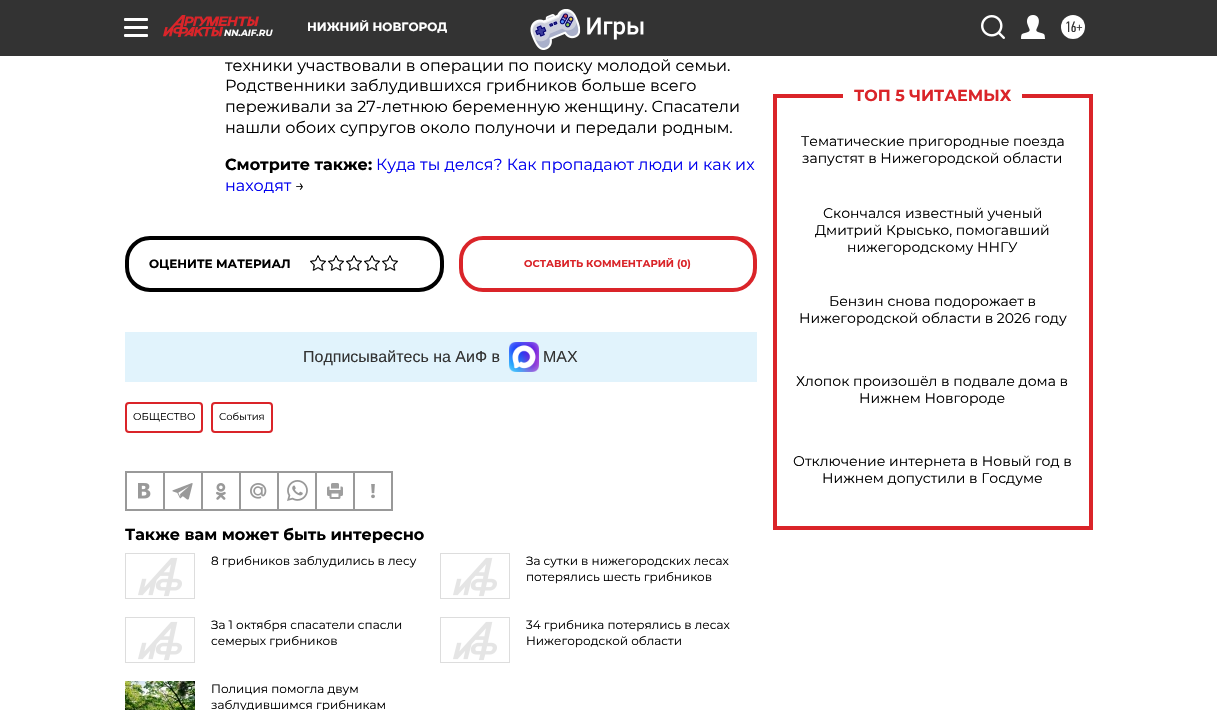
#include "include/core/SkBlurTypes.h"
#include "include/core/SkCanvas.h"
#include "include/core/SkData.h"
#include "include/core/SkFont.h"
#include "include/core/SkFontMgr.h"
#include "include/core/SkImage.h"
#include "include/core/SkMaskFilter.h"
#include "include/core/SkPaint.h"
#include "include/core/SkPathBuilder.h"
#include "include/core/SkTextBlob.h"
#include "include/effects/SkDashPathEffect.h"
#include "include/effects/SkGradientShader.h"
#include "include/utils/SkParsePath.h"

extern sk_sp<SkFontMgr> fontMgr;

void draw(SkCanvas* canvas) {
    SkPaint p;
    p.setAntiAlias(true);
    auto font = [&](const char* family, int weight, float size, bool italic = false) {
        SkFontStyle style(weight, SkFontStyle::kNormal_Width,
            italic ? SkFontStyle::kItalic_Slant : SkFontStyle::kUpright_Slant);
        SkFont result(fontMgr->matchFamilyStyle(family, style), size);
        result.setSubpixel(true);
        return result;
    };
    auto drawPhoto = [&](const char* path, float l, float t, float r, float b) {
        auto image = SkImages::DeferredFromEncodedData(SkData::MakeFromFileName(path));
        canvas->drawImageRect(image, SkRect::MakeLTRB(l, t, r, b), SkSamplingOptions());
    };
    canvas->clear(0xFFFFFFFF);
    p.setColor(0xFF333333);
    canvas->drawRect(SkRect::MakeLTRB(0, 0, 1217, 56), p);
    p.setColor(0xFFFFFFFF);
    canvas->drawRoundRect(SkRect::MakeLTRB(124, 18, 148, 21), 1, 1, p);
    canvas->drawRoundRect(SkRect::MakeLTRB(124, 26, 148, 29), 1, 1, p);
    canvas->drawRoundRect(SkRect::MakeLTRB(124, 34, 148, 37), 1, 1, p);
    drawPhoto("media/1.png", 163, 15, 259, 37);
    auto font1 = font("Montserrat", 700, 9, true);
    canvas->drawString("NN.AIF.RU", 224, 36, font1, p);
    auto font2 = font("Montserrat", 700, 12);
    canvas->drawString("НИЖНИЙ НОВГОРОД", 307, 31, font2, p);
    drawPhoto("media/2.png", 530, 9, 644, 50);
    drawPhoto("media/3.png", 981, 15, 1005, 39);
    drawPhoto("media/4.png", 1021, 15, 1045, 39);
    canvas->drawCircle(1073, 27, 12, p);
    auto font3 = font("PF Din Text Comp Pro", 400, 15);
    p.setColor(0xFF333333);
    canvas->drawString("16+", 1065, 32, font3, p);
    auto font4 = font("Montserrat", 400, 16);
    p.setColor(0xFF000000);
    {
        const struct { const char* s; float x, y; } items[] = {
            {"техники участвовали в операции по поиску молодой семьи.", 225, 71},
            {"Родственники заблудившихся грибников больше всего", 225, 91},
            {"переживали за 27-летнюю беременную женщину. Спасатели", 225, 112},
            {"нашли обоих супругов около полуночи и передали родным.", 225, 133},
        };
        for (auto [s, x, y] : items) {
            canvas->drawString(s, x, y, font4, p);
        }
    }
    auto font5 = font("Montserrat", 700, 16);
    canvas->drawString("Смотрите также:", 225, 170, font5, p);
    p.setColor(0xFF0000EE);
    canvas->drawString("Куда ты делся? Как пропадают люди и как их", 376, 170, font4, p);
    canvas->drawString("находят", 225, 191, font4, p);
    p.setColor(0xFF000000);
    canvas->drawString("→", 295, 191, font4, p);
    p.setStyle(SkPaint::kStroke_Style);
    p.setStrokeWidth(4);
    canvas->drawRoundRect(SkRect::MakeLTRB(127, 238, 442, 290), 23, 23, p);
    p.setStyle(SkPaint::kFill_Style);
    canvas->drawString("ОЦЕНИТЕ МАТЕРИАЛ", 149, 268, font2, p);
    drawPhoto("media/5.png", 310, 255, 326, 271);
    drawPhoto("media/5.png", 328, 255, 344, 271);
    drawPhoto("media/5.png", 346, 255, 362, 271);
    drawPhoto("media/5.png", 364, 255, 380, 271);
    drawPhoto("media/5.png", 382, 255, 398, 271);
    p.setStyle(SkPaint::kStroke_Style);
    p.setColor(0xFFDA2429);
    canvas->drawRoundRect(SkRect::MakeLTRB(461, 238, 755, 290), 22, 22, p);
    auto font6 = font("Montserrat", 700, 10);
    p.setStyle(SkPaint::kFill_Style);
    canvas->drawString("ОСТАВИТЬ КОММЕНТАРИЙ (0)", 524, 267, font6, p);
    p.setColor(0xFFE1F3FC);
    canvas->drawRect(SkRect::MakeLTRB(125, 332, 757, 382), p);
    auto font7 = font("Liberation Sans", 400, 16);
    p.setColor(0xFF333333);
    canvas->drawString("Подписывайтесь на АиФ в", 303, 362, font7, p);
    drawPhoto("media/6.png", 509, 342, 539, 372);
    canvas->drawString("MAX", 543, 362, font7, p);
    p.setStyle(SkPaint::kStroke_Style);
    p.setStrokeWidth(2);
    p.setColor(0xFFDA2429);
    canvas->drawRoundRect(SkRect::MakeLTRB(126, 403, 202, 432), 3, 3, p);
    auto font8 = font("Montserrat", 400, 10);
    p.setStyle(SkPaint::kFill_Style);
    p.setColor(0xFF000000);
    canvas->drawString("ОБЩЕСТВО", 133, 420, font8, p);
    p.setStyle(SkPaint::kStroke_Style);
    p.setColor(0xFFDA2429);
    canvas->drawRoundRect(SkRect::MakeLTRB(212, 403, 272, 432), 3, 3, p);
    p.setStyle(SkPaint::kFill_Style);
    p.setColor(0xFF000000);
    canvas->drawString("События", 219, 420, font8, p);
    p.setStyle(SkPaint::kStroke_Style);
    p.setStrokeWidth(1);
    p.setColor(0xFF999999);
    canvas->drawRect(SkRect::MakeLTRB(125.5f, 471.5f, 392.5f, 510.5f), p);
    canvas->drawRect(SkRect::MakeLTRB(126.5f, 472.5f, 163.5f, 509.5f), p);
    drawPhoto("media/7.png", 138, 483, 151, 499);
    canvas->drawRect(SkRect::MakeLTRB(164.5f, 472.5f, 201.5f, 509.5f), p);
    drawPhoto("media/8.png", 172, 483, 193, 500);
    canvas->drawRect(SkRect::MakeLTRB(202.5f, 472.5f, 239.5f, 509.5f), p);
    drawPhoto("media/9.png", 216, 483, 226, 500);
    canvas->drawRect(SkRect::MakeLTRB(240.5f, 472.5f, 277.5f, 509.5f), p);
    drawPhoto("media/10.png", 250, 483, 267, 499);
    canvas->drawRect(SkRect::MakeLTRB(278.5f, 472.5f, 315.5f, 509.5f), p);
    drawPhoto("media/11.png", 287, 480, 308, 501);
    canvas->drawRect(SkRect::MakeLTRB(316.5f, 472.5f, 353.5f, 509.5f), p);
    drawPhoto("media/12.png", 327, 483, 343, 499);
    canvas->drawRect(SkRect::MakeLTRB(354.5f, 472.5f, 391.5f, 509.5f), p);
    drawPhoto("media/13.png", 371, 484, 375, 499);
    p.setStyle(SkPaint::kFill_Style);
    p.setColor(0xFF000000);
    canvas->drawString("Также вам может быть интересно", 125, 540, font5, p);
    drawPhoto("media/14.png", 125, 553, 195, 599);
    auto font9 = font("Montserrat", 400, 12);
    canvas->drawString("8 грибников заблудились в лесу", 211, 565, font9, p);
    drawPhoto("media/14.png", 440, 553, 510, 599);
    canvas->drawString("За сутки в нижегородских лесах", 526, 565, font9, p);
    canvas->drawString("потерялись шесть грибников", 526, 581, font9, p);
    drawPhoto("media/14.png", 125, 617, 195, 663);
    canvas->drawString("За 1 октября спасатели спасли", 211, 629, font9, p);
    canvas->drawString("семерых грибников", 211, 645, font9, p);
    drawPhoto("media/14.png", 440, 617, 510, 663);
    canvas->drawString("34 грибника потерялись в лесах", 526, 629, font9, p);
    canvas->drawString("Нижегородской области", 526, 645, font9, p);
    drawPhoto("media/15.png", 125, 681, 195, 710);
    canvas->drawString("Полиция помогла двум", 211, 693, font9, p);
    canvas->drawString("заблудившимся грибникам", 211, 709, font9, p);
    {
        const struct { float l, t, r, b; SkColor color; } items[] = {
            {1089, 94, 1093, 530, 0xFFDA2429},
            {773, 526, 1093, 530, 0xFFDA2429},
            {773, 94, 777, 530, 0xFFDA2429},
            {773, 94, 843, 98, 0xFFDA2429},
        };
        for (auto [l, t, r, b, color] : items) {
            p.setColor(color);
            canvas->drawRect(SkRect::MakeLTRB(l, t, r, b), p);
        }
    }
    canvas->drawString("ТОП 5 ЧИТАЕМЫХ", 854, 101, font5, p);
    canvas->drawRect(SkRect::MakeLTRB(1022, 94, 1093, 98), p);
    auto font10 = font("Montserrat", 400, 14);
    p.setColor(0xFF000000);
    {
        const struct { const char* s; float x, y; } items[] = {
            {"Тематические пригородные поезда", 801, 146},
            {"запустят в Нижегородской области", 802, 163},
            {"Скончался известный ученый", 823, 218},
            {"Дмитрий Крысько, помогавший", 815, 235},
            {"нижегородскому ННГУ", 847, 252},
            {"Бензин снова подорожает в", 829, 306},
            {"Нижегородской области в 2026 году", 799, 323},
            {"Хлопок произошёл в подвале дома в", 796, 386},
            {"Нижнем Новгороде", 859, 403},
            {"Отключение интернета в Новый год в", 793, 466},
            {"Нижнем допустили в Госдуме", 822, 483},
        };
        for (auto [s, x, y] : items) {
            canvas->drawString(s, x, y, font10, p);
        }
    }
}
